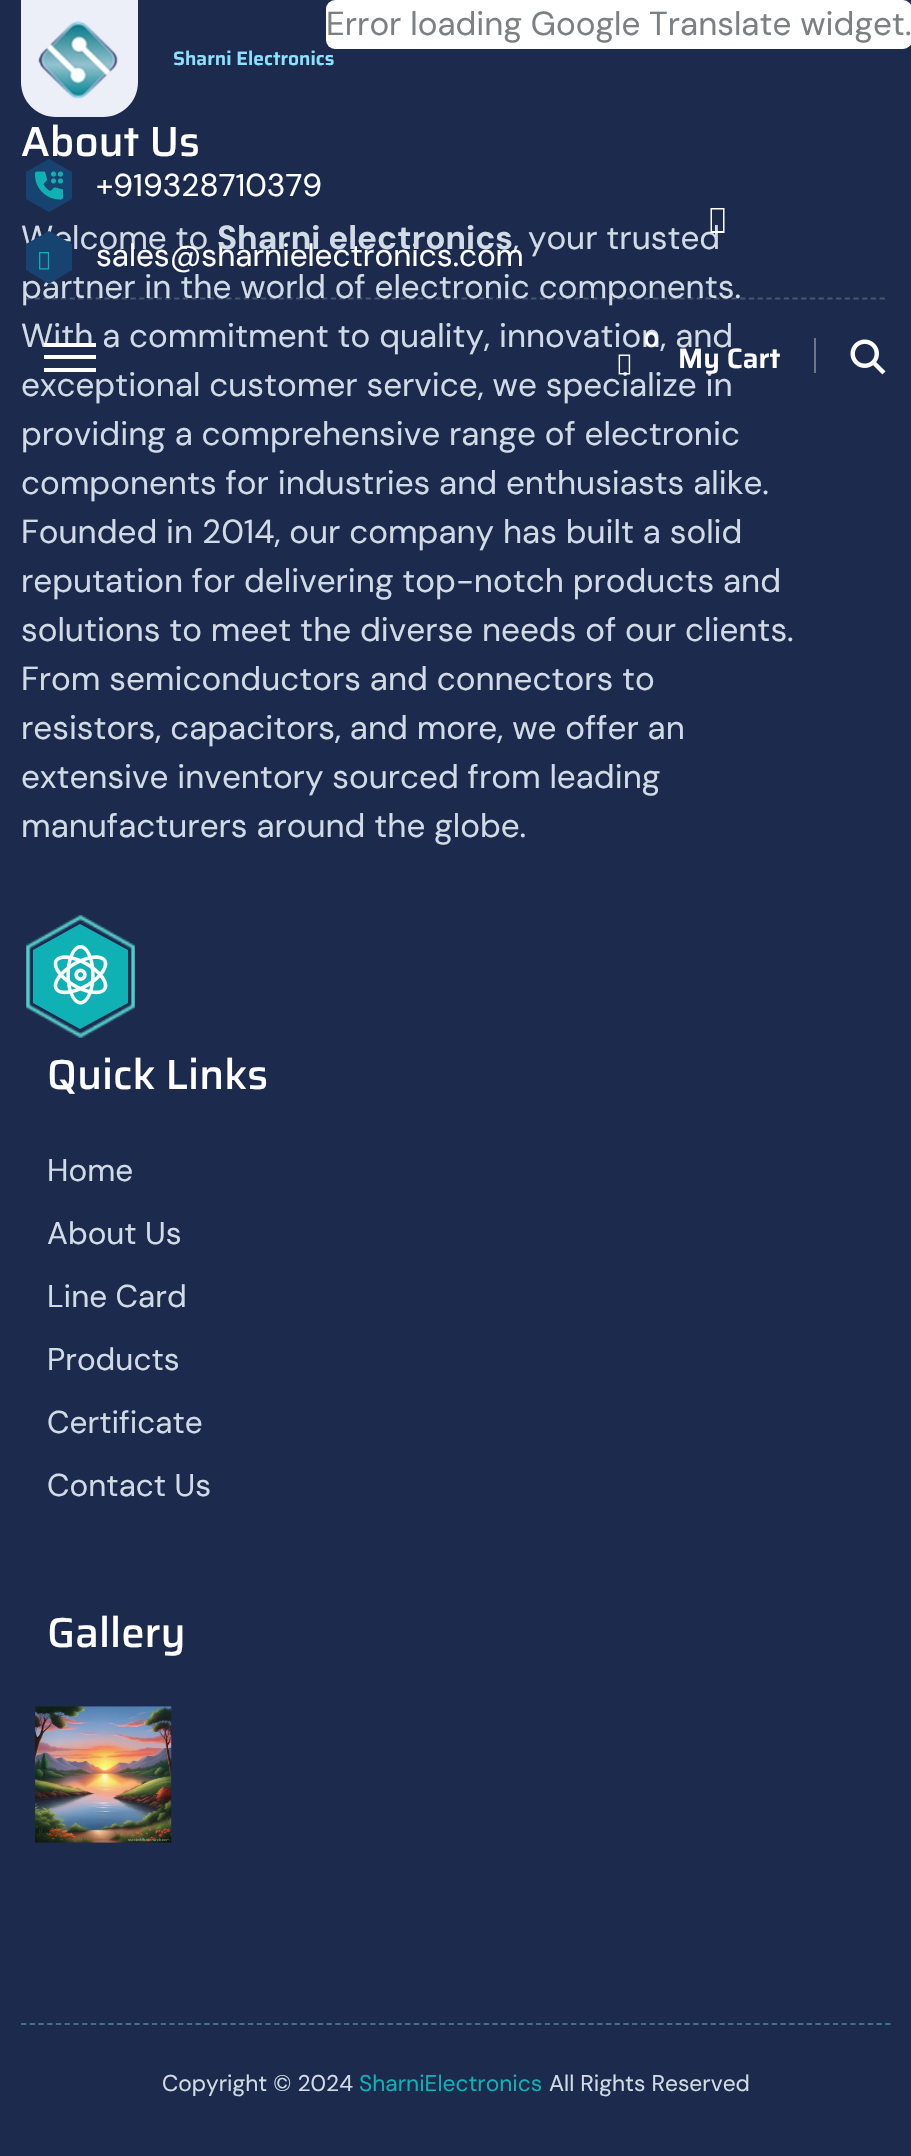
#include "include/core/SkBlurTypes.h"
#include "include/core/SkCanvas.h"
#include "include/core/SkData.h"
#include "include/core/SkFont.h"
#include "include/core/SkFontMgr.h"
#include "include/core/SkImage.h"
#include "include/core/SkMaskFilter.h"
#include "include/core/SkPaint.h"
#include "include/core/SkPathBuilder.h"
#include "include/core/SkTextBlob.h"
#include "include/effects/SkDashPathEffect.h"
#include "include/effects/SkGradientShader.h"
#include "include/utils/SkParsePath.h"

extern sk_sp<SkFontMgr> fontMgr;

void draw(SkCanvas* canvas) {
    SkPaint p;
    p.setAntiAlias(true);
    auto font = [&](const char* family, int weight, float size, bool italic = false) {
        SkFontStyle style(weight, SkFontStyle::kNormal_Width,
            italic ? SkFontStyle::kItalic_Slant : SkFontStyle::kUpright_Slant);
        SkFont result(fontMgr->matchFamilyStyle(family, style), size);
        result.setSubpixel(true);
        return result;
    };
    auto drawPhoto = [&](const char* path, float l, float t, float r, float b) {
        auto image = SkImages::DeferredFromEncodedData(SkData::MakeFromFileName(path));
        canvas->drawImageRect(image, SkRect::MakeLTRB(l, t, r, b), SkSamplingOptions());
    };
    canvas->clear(0xFF1C2A4D);
    p.setColor(0xFFFFFFFF);
    canvas->drawRoundRect(SkRect::MakeLTRB(326, 0, 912, 49), 9, 9, p);
    auto font1 = font("DM Sans", 400, 33.25f);
    p.setColor(0xFF7C8083);
    canvas->drawString("Error loading Google Translate widget.", 326, 35, font1, p);
    p.setColor(0xFFECEFF7);
    canvas->drawPath(SkPathBuilder().moveTo(21, 0).lineTo(138, 0).lineTo(138, 82).cubicTo(138, 101.5f, 122.5f, 117, 103, 117).lineTo(56, 117).cubicTo(36.5f, 117, 21, 101.5f, 21, 82).close().detach(), p);
    drawPhoto("media/1.png", 38, 20, 118, 99);
    auto font2 = font("Saira", 600, 19.25f);
    p.setColor(0xFF8CE1FF);
    canvas->drawString("Sharni Electronics", 173, 65, font2, p);
    p.setColor(0xFFD1DBE5);
    canvas->drawString("partner in the world of electronic components.", 21, 298, font1, p);
    p.setStyle(SkPaint::kStroke_Style);
    p.setStrokeWidth(1.8f);
    p.setColor(0x33FFFFFF);
    p.setPathEffect(SkDashPathEffect::Make({{5.25f, 3.46f}}, 0));
    canvas->drawPath(SkPathBuilder().moveTo(26, 298.5f).lineTo(885.5f, 298.5f).detach(), p);
    p.setPathEffect(nullptr);
    p.setStyle(SkPaint::kFill_Style);
    p.setColor(0xFF16436F);
    canvas->drawPath(SkPathBuilder().moveTo(72, 172).lineTo(49, 159).lineTo(26, 172).lineTo(26, 199).lineTo(49, 212).lineTo(72, 199).close().detach(), p);
    drawPhoto("media/2.png", 35, 171, 63, 200);
    auto font3 = font("DM Sans", 400, 31.5f);
    p.setColor(0xFFFFFFFF);
    canvas->drawString("+919328710379", 96, 196, font3, p);
    p.setColor(0xFFD1DBE5);
    canvas->drawString("Welcome to", 21, 249, font1, p);
    p.setColor(0xFF16436F);
    canvas->drawPath(SkPathBuilder().moveTo(72, 244).lineTo(49, 231).lineTo(26, 244).lineTo(26, 270).lineTo(49, 284).lineTo(72, 270).close().detach(), p);
    drawPhoto("media/3.png", 39, 252, 50, 270);
    p.setColor(0xFFD1DBE5);
    canvas->drawString(", your trusted", 513, 249, font1, p);
    p.setColor(0xFFFFFFFF);
    canvas->drawString("sales@sharnielectronics.com", 96, 266, font3, p);
    canvas->drawPath(SkPathBuilder().moveTo(710.5f, 233).lineTo(710.5f, 208).lineTo(724.5f, 208).lineTo(724.5f, 233).close().moveTo(712, 231).lineTo(723, 231).lineTo(723, 209.5f).lineTo(712, 209.5f).close().detach(), p);
    p.setColor(0xFFD1DBE5);
    canvas->drawString("With a commitment to quality, innovation, and", 21, 347, font1, p);
    p.setColor(0xFFFFFFFF);
    canvas->drawRect(SkRect::MakeLTRB(44, 343, 96, 347), p);
    canvas->drawRect(SkRect::MakeLTRB(44, 355, 96, 359), p);
    p.setColor(0xFFD1DBE5);
    canvas->drawString("exceptional customer service, we specialize in", 21, 396, font1, p);
    p.setColor(0xFFFFFFFF);
    canvas->drawRect(SkRect::MakeLTRB(44, 368, 96, 372), p);
    auto font4 = font("DM Sans", 700, 21);
    canvas->drawString("0", 644, 347, font4, p);
    drawPhoto("media/4.png", 618, 354, 631, 375);
    auto font5 = font("Saira", 600, 28);
    canvas->drawString("My Cart", 678, 368, font5, p);
    p.setColor(0xFF6B758B);
    canvas->drawRect(SkRect::MakeLTRB(814, 338, 816, 373), p);
    drawPhoto("media/5.png", 850, 339, 886, 375);
    p.setStyle(SkPaint::kStroke_Style);
    p.setColor(0xFF3E7288);
    p.setPathEffect(SkDashPathEffect::Make({{5.25f, 3.48f}}, 0));
    canvas->drawPath(SkPathBuilder().moveTo(21, 2024).lineTo(891, 2024).detach(), p);
    p.setPathEffect(nullptr);
    auto font6 = font("Saira", 500, 42);
    p.setStyle(SkPaint::kFill_Style);
    p.setColor(0xFFFFFFFF);
    canvas->drawString("About Us", 21, 156, font6, p);
    auto font7 = font("DM Sans", 700, 33.25f);
    p.setColor(0xFFD1DBE5);
    canvas->drawString("Sharni electronics", 217, 249, font7, p);
    {
        const struct { const char* s; float x, y; } items[] = {
            {"providing a comprehensive range of electronic", 21, 445},
            {"components for industries and enthusiasts alike.", 21, 494},
            {"Founded in 2014, our company has built a solid", 21, 543},
            {"reputation for delivering top-notch products and", 21, 592},
            {"solutions to meet the diverse needs of our clients.", 21, 641},
            {"From semiconductors and connectors to", 21, 690},
            {"resistors, capacitors, and more, we offer an", 21, 739},
            {"extensive inventory sourced from leading", 21, 788},
            {"manufacturers around the globe.", 21, 837},
        };
        for (auto [s, x, y] : items) {
            canvas->drawString(s, x, y, font1, p);
        }
    }
    p.setColor(0xFF10B1B4);
    canvas->drawPath(SkPathBuilder().moveTo(128, 950).lineTo(80, 924).lineTo(33, 950).lineTo(33, 1003).lineTo(80, 1029).lineTo(128, 1003).close().detach(), p);
    drawPhoto("media/7.png", 53, 945, 108, 1005);
    drawPhoto("media/6.png", 26, 915, 135, 1038);
    p.setColor(0xFFFFFFFF);
    canvas->drawString("Quick Links", 47, 1089, font6, p);
    p.setColor(0xFFD1DBE5);
    {
        const struct { const char* s; float x, y; } items[] = {
            {"Home", 47, 1181},
            {"About Us", 47, 1244},
            {"Line Card", 47, 1307},
            {"Products", 47, 1370},
            {"Certificate", 47, 1433},
            {"Contact Us", 47, 1496},
        };
        for (auto [s, x, y] : items) {
            canvas->drawString(s, x, y, font3, p);
        }
    }
    p.setColor(0xFFFFFFFF);
    canvas->drawString("Gallery", 47, 1647, font6, p);
    drawPhoto("media/8.png", 35, 1706, 172, 1843);
    auto font8 = font("DM Sans", 400, 22.75f);
    p.setColor(0xFFD1DBE5);
    canvas->drawString("Copyright © 2024", 162, 2091, font8, p);
    p.setColor(0xFF10B1B4);
    canvas->drawString("SharniElectronics", 359, 2091, font8, p);
    p.setColor(0xFFD1DBE5);
    canvas->drawString("All Rights Reserved", 549, 2091, font8, p);
}
